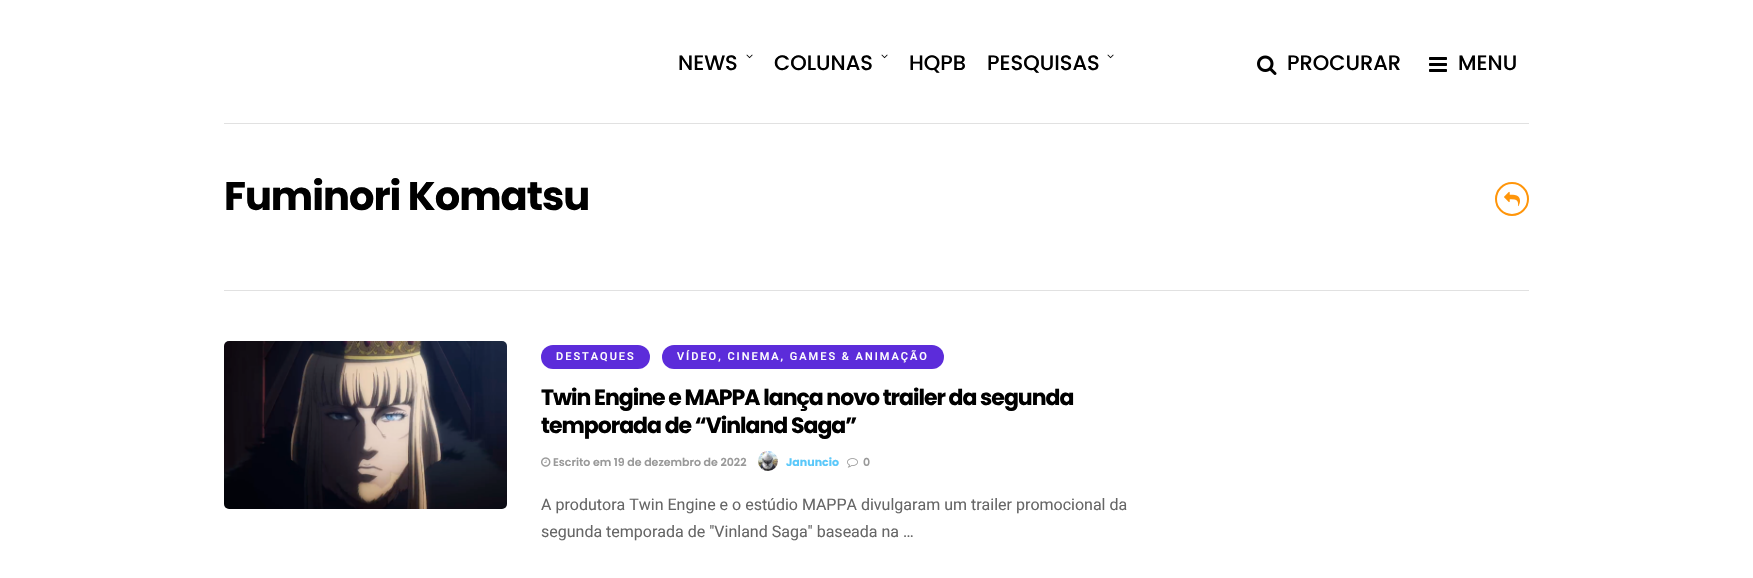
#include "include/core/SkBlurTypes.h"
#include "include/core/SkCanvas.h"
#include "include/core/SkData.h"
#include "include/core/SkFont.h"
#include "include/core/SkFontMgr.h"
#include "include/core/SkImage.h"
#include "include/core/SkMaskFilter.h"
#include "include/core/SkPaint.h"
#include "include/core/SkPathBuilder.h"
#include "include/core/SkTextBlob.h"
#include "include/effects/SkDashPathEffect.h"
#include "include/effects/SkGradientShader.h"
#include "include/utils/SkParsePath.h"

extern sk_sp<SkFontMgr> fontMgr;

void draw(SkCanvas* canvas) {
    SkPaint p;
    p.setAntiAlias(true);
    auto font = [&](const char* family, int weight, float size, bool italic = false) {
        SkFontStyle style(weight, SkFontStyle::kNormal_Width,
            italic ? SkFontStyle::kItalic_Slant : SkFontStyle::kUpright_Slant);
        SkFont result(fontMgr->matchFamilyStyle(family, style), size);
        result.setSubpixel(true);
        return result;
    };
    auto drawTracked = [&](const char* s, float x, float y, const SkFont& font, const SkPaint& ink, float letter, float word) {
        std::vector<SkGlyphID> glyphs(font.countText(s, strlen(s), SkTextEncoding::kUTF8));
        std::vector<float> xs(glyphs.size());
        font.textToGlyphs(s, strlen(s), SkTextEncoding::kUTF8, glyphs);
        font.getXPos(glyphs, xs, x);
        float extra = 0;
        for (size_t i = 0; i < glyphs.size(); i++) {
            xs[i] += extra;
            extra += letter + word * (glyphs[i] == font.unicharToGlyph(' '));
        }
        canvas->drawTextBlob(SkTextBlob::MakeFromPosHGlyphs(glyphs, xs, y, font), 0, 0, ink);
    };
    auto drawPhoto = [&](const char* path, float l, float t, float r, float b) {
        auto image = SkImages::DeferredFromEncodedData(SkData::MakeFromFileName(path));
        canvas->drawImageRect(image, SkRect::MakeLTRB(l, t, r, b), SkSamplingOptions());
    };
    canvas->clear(0xFFFFFFFF);
    p.setColor(0xFFE1E1E1);
    canvas->drawRect(SkRect::MakeLTRB(224, 123, 1529, 124), p);
    auto font1 = font("Poppins", 500, 21);
    p.setColor(0xFF000000);
    canvas->drawString("NEWS", 678, 70, font1, p);
    drawPhoto("media/1.png", 746, 54, 753, 59);
    canvas->drawString("COLUNAS", 774, 70, font1, p);
    drawPhoto("media/1.png", 881, 54, 888, 59);
    canvas->drawString("HQPB", 909, 70, font1, p);
    canvas->drawString("PESQUISAS", 987, 70, font1, p);
    drawPhoto("media/1.png", 1107, 54, 1114, 59);
    drawPhoto("media/2.png", 1257, 55, 1277, 75);
    canvas->drawString("PROCURAR", 1287, 70, font1, p);
    drawPhoto("media/3.png", 1429, 57, 1447, 72);
    canvas->drawString("MENU", 1458, 70, font1, p);
    p.setColor(0xFFE1E1E1);
    canvas->drawRect(SkRect::MakeLTRB(224, 290, 1529, 291), p);
    auto font2 = font("Poppins", 700, 40);
    p.setColor(0xFF000000);
    drawTracked("Fuminori Komatsu", 224, 210, font2, p, -1, 0);
    p.setStyle(SkPaint::kStroke_Style);
    p.setStrokeWidth(2);
    p.setColor(0xFFFF9509);
    canvas->drawCircle(1512, 199, 16, p);
    drawPhoto("media/4.png", 1504, 191, 1520, 207);
    drawPhoto("media/5.png", 224, 341, 507, 509);
    p.setStyle(SkPaint::kFill_Style);
    p.setColor(0xFF5C2CDA);
    canvas->drawRoundRect(SkRect::MakeLTRB(541, 345, 650, 369), 12, 12, p);
    auto font3 = font("Roboto", 500, 11);
    p.setColor(0xFFFFFFFF);
    drawTracked("DESTAQUES", 556, 360, font3, p, 2, 0);
    p.setColor(0xFF5C2CDA);
    canvas->drawRoundRect(SkRect::MakeLTRB(662, 345, 944, 369), 12, 12, p);
    p.setColor(0xFFFFFFFF);
    drawTracked("VÍDEO, CINEMA, GAMES & ANIMAÇÃO", 677, 360, font3, p, 2, 0);
    auto font4 = font("Poppins", 700, 22);
    p.setColor(0xFF000000);
    drawTracked("Twin Engine e MAPPA lança novo trailer da segunda", 541, 405, font4, p, -1, 0);
    drawTracked("temporada de “Vinland Saga”", 541, 433, font4, p, -1, 0);
    drawPhoto("media/6.png", 541, 457, 551, 467);
    auto font5 = font("Poppins", 600, 11);
    p.setColor(0xFF999999);
    canvas->drawString("Escrito em 19 de dezembro de 2022", 553, 466, font5, p);
    drawPhoto("media/7.png", 758, 451, 778, 471);
    auto font6 = font("Poppins", 700, 11);
    p.setColor(0xFF5AC8FA);
    canvas->drawString("Januncio", 786, 466, font6, p);
    drawPhoto("media/8.png", 847, 458, 858, 468);
    p.setColor(0xFF999999);
    canvas->drawString("0", 863, 466, font5, p);
    auto font7 = font("Roboto", 400, 16);
    p.setColor(0xFF666666);
    canvas->drawString("A produtora Twin Engine e o estúdio MAPPA divulgaram um trailer promocional da", 541, 510, font7, p);
    canvas->drawString("segunda temporada de \"Vinland Saga\" baseada na …", 541, 537, font7, p);
}
